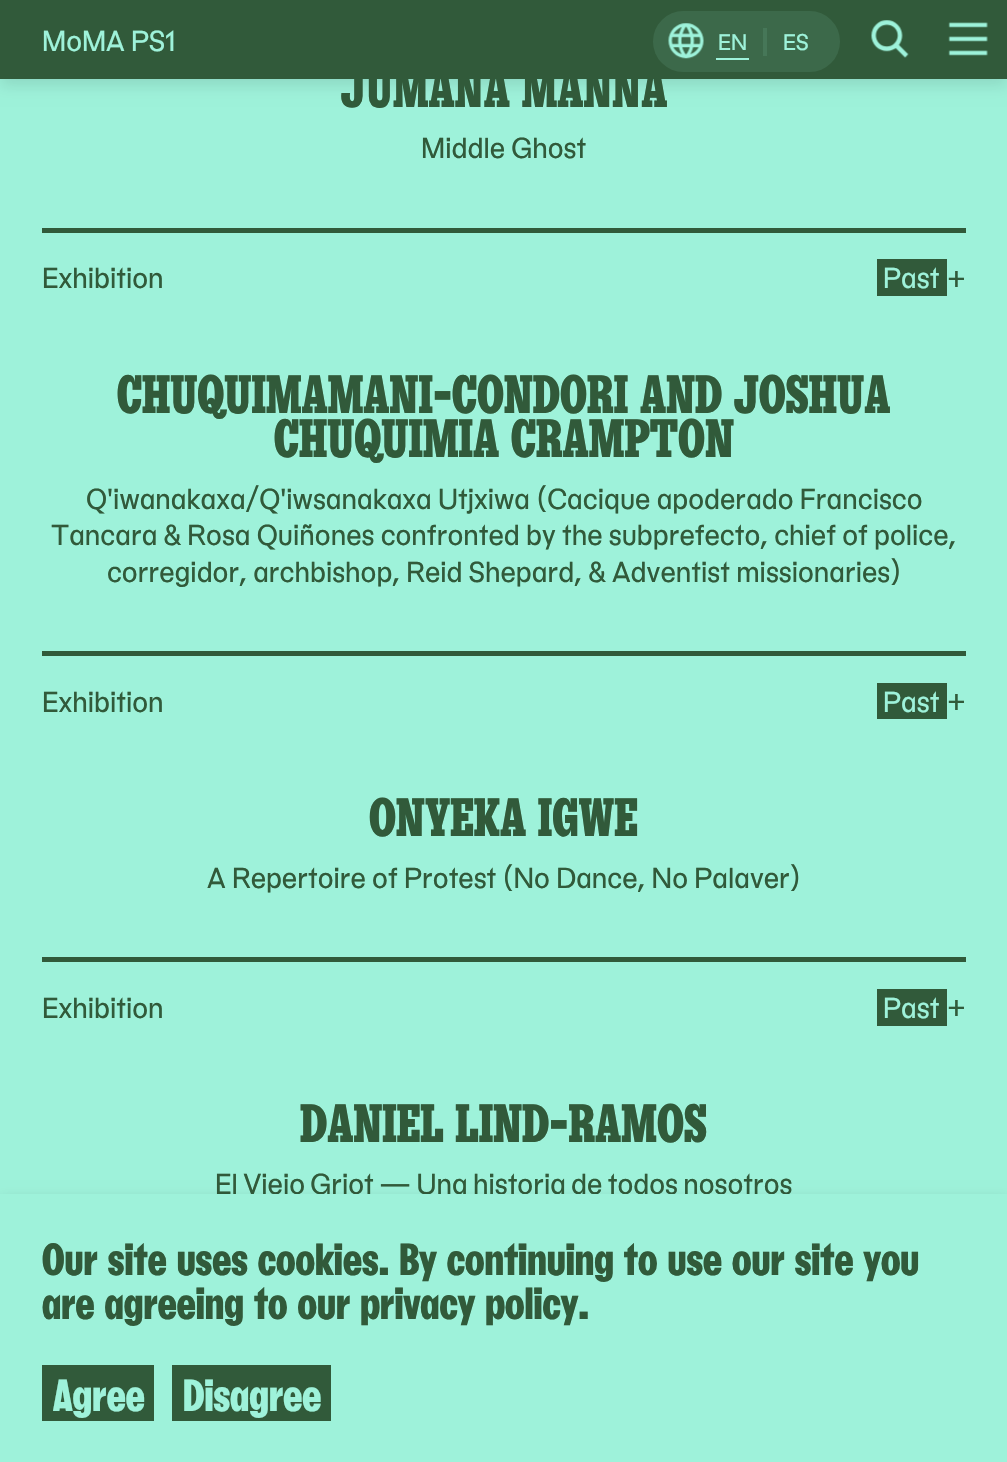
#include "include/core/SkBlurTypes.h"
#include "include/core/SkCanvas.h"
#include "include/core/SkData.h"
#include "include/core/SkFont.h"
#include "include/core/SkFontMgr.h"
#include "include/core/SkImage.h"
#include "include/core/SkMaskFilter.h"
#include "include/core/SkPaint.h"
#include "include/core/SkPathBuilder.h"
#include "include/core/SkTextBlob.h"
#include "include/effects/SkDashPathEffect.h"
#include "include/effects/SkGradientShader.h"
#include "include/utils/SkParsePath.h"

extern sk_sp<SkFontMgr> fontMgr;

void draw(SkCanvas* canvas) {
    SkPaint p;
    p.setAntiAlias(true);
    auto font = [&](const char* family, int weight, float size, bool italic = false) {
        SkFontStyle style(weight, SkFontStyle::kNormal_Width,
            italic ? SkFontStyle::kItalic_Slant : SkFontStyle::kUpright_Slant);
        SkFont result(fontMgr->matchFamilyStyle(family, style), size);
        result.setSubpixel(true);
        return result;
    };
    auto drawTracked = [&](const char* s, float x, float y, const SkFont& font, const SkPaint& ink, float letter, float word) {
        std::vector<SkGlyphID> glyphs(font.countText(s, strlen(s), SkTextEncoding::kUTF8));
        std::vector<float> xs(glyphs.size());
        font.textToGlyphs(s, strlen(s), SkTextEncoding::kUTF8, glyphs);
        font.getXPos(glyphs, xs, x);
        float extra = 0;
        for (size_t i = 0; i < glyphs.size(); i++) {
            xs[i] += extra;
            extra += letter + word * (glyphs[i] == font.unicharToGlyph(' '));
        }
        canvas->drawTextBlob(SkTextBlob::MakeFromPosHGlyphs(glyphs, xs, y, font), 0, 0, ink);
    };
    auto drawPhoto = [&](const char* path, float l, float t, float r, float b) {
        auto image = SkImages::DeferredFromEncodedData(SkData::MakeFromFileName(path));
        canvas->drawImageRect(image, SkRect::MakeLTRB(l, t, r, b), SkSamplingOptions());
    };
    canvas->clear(0xFF9EF2DA);
    p.setColor(0x1A000000);
    p.setMaskFilter(SkMaskFilter::MakeBlur(kNormal_SkBlurStyle, 7));
    canvas->drawRect(SkRect::MakeLTRB(0, 7, 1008, 86), p);
    p.setMaskFilter(nullptr);
    p.setColor(0xFF315A3A);
    canvas->drawRect(SkRect::MakeLTRB(0, 0, 1007, 79), p);
    auto font1 = font("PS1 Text", 400, 28);
    p.setColor(0xFF9EF2DA);
    canvas->drawString("MoMA PS1", 42, 51, font1, p);
    auto font2 = font("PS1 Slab", 700, 52.5f);
    p.setColor(0xFF315A3A);
    drawTracked("JUMANA MANNA", 341, 107, font2, p, 0, 3);
    p.setColor(0xFF3C694A);
    canvas->drawRoundRect(SkRect::MakeLTRB(653, 11, 840, 72), 30.5f, 30.5f, p);
    drawPhoto("media/1.png", 668, 23, 704, 59);
    p.setColor(0xFF467758);
    canvas->drawRect(SkRect::MakeLTRB(763, 28, 767, 56), p);
    auto font3 = font("PS1 Text", 400, 22);
    p.setColor(0xFF9EF2DA);
    canvas->drawString("EN", 718, 50, font3, p);
    canvas->drawRect(SkRect::MakeLTRB(716, 58, 749, 60), p);
    canvas->drawString("ES", 783, 50, font3, p);
    drawPhoto("media/2.png", 871, 20, 909, 58);
    drawPhoto("media/3.png", 948, 22, 988, 56);
    p.setColor(0xFF315A3A);
    canvas->drawString("Middle Ghost", 421, 158, font1, p);
    canvas->drawRect(SkRect::MakeLTRB(42, 228, 966, 233), p);
    canvas->drawString("Exhibition", 42, 288, font1, p);
    canvas->drawRect(SkRect::MakeLTRB(877, 259, 947, 296), p);
    p.setColor(0xFF9EF2DA);
    canvas->drawString("Past", 883, 288, font1, p);
    p.setColor(0xFF315A3A);
    canvas->drawString("+", 947, 289, font1, p);
    drawTracked("CHUQUIMAMANI-CONDORI AND JOSHUA", 117, 413, font2, p, 0, 3);
    drawTracked("CHUQUIMIA CRAMPTON", 274, 457, font2, p, 0, 3);
    {
        const struct { const char* s; float x, y; } items[] = {
            {"Q'iwanakaxa/Q'iwsanakaxa Utjxiwa (Cacique apoderado Francisco", 86, 509},
            {"Tancara & Rosa Quiñones confronted by the subprefecto, chief of police,", 51, 545},
            {"corregidor, archbishop, Reid Shepard, & Adventist missionaries)", 107, 582},
        };
        for (auto [s, x, y] : items) {
            canvas->drawString(s, x, y, font1, p);
        }
    }
    canvas->drawRect(SkRect::MakeLTRB(42, 651, 966, 656), p);
    canvas->drawString("Exhibition", 42, 712, font1, p);
    canvas->drawRect(SkRect::MakeLTRB(877, 683, 947, 719), p);
    p.setColor(0xFF9EF2DA);
    canvas->drawString("Past", 883, 712, font1, p);
    p.setColor(0xFF315A3A);
    canvas->drawString("+", 947, 712, font1, p);
    drawTracked("ONYEKA IGWE", 369, 836, font2, p, 0, 3);
    canvas->drawString("A Repertoire of Protest (No Dance, No Palaver)", 207, 888, font1, p);
    canvas->drawRect(SkRect::MakeLTRB(42, 957, 966, 962), p);
    canvas->drawString("Exhibition", 42, 1018, font1, p);
    canvas->drawRect(SkRect::MakeLTRB(877, 989, 947, 1026), p);
    p.setColor(0xFF9EF2DA);
    canvas->drawString("Past", 883, 1018, font1, p);
    p.setColor(0xFF315A3A);
    canvas->drawString("+", 947, 1018, font1, p);
    drawTracked("DANIEL LIND-RAMOS", 300, 1142, font2, p, 0, 3);
    drawTracked("El Viejo Griot — Una historia de todos nosotros", 215, 1194, font1, p, 0, -1);
    p.setColor(0x33000000);
    p.setMaskFilter(SkMaskFilter::MakeBlur(kNormal_SkBlurStyle, 7));
    canvas->drawRect(SkRect::MakeLTRB(0, 1201, 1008, 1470), p);
    p.setMaskFilter(nullptr);
    p.setColor(0xFF9EF2DA);
    canvas->drawRect(SkRect::MakeLTRB(0, 1194, 1007, 1462), p);
    auto font4 = font("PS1", 700, 43.75f);
    p.setColor(0xFF315A3A);
    drawTracked("Our site uses cookies. By continuing to use our site you", 42, 1275, font4, p, 0, 2.5f);
    drawTracked("are agreeing to our privacy policy.", 42, 1319, font4, p, 0, 2.5f);
    canvas->drawRect(SkRect::MakeLTRB(42, 1365, 154, 1421), p);
    p.setColor(0xFF9EF2DA);
    canvas->drawString("Agree", 53, 1411, font4, p);
    p.setColor(0xFF315A3A);
    canvas->drawRect(SkRect::MakeLTRB(172, 1365, 331, 1421), p);
    p.setColor(0xFF9EF2DA);
    canvas->drawString("Disagree", 183, 1411, font4, p);
}
